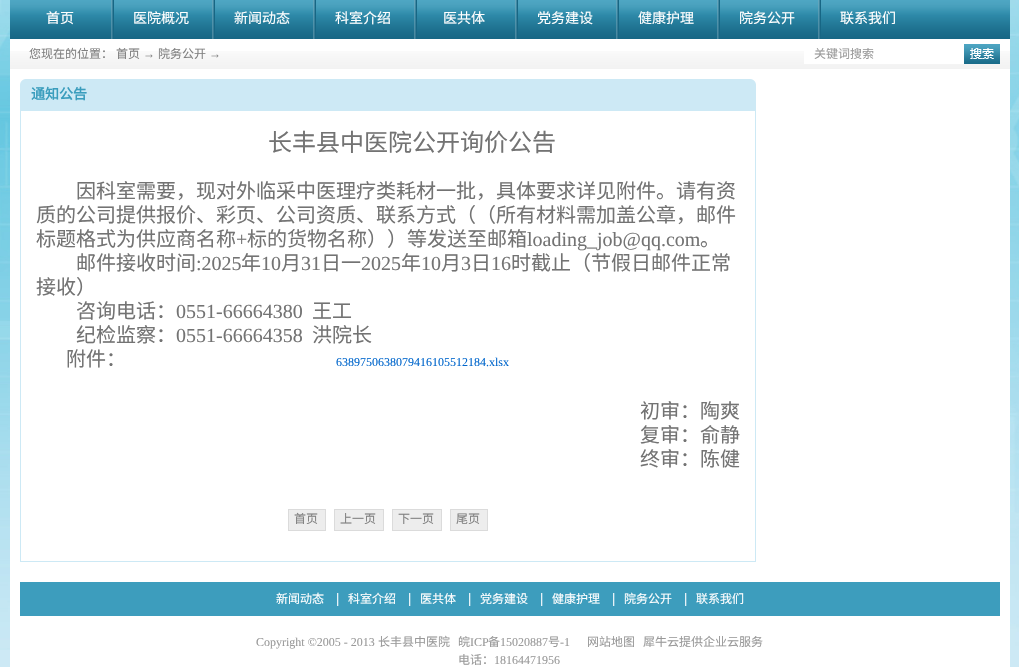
#include "include/core/SkBlurTypes.h"
#include "include/core/SkCanvas.h"
#include "include/core/SkData.h"
#include "include/core/SkFont.h"
#include "include/core/SkFontMgr.h"
#include "include/core/SkImage.h"
#include "include/core/SkMaskFilter.h"
#include "include/core/SkPaint.h"
#include "include/core/SkPathBuilder.h"
#include "include/core/SkTextBlob.h"
#include "include/effects/SkDashPathEffect.h"
#include "include/effects/SkGradientShader.h"
#include "include/utils/SkParsePath.h"

extern sk_sp<SkFontMgr> fontMgr;

void draw(SkCanvas* canvas) {
    SkPaint p;
    p.setAntiAlias(true);
    auto font = [&](const char* family, int weight, float size, bool italic = false) {
        SkFontStyle style(weight, SkFontStyle::kNormal_Width,
            italic ? SkFontStyle::kItalic_Slant : SkFontStyle::kUpright_Slant);
        SkFont result(fontMgr->matchFamilyStyle(family, style), size);
        result.setSubpixel(true);
        return result;
    };
    auto drawPhoto = [&](const char* path, float l, float t, float r, float b) {
        auto image = SkImages::DeferredFromEncodedData(SkData::MakeFromFileName(path));
        canvas->drawImageRect(image, SkRect::MakeLTRB(l, t, r, b), SkSamplingOptions());
    };
    canvas->clear(0xFFCDE9F5);
    drawPhoto("media/1.png", 0, 0, 1019, 650);
    drawPhoto("media/2.png", 10, 0, 1010, 39);
    auto font1 = font("Noto Sans CJK SC", 400, 14);
    p.setColor(0xFFFFFFFF);
    canvas->drawString("首页", 46, 23, font1, p);
    drawPhoto("media/3.png", 111, 0, 114, 39);
    canvas->drawString("医院概况", 133, 23, font1, p);
    drawPhoto("media/4.png", 212, 0, 215, 39);
    canvas->drawString("新闻动态", 234, 23, font1, p);
    drawPhoto("media/4.png", 313, 0, 316, 39);
    canvas->drawString("科室介绍", 335, 23, font1, p);
    drawPhoto("media/4.png", 414, 0, 417, 39);
    canvas->drawString("医共体", 443, 23, font1, p);
    drawPhoto("media/4.png", 515, 0, 518, 39);
    canvas->drawString("党务建设", 537, 23, font1, p);
    drawPhoto("media/3.png", 616, 0, 619, 39);
    canvas->drawString("健康护理", 638, 23, font1, p);
    drawPhoto("media/4.png", 717, 0, 720, 39);
    canvas->drawString("院务公开", 739, 23, font1, p);
    drawPhoto("media/4.png", 818, 0, 821, 39);
    canvas->drawString("联系我们", 840, 23, font1, p);
    canvas->drawRect(SkRect::MakeLTRB(10, 39, 1010, 667), p);
    drawPhoto("media/5.png", 10, 51, 1010, 69);
    auto font2 = font("Noto Sans CJK SC", 400, 12);
    p.setColor(0xFF808080);
    canvas->drawString("您现在的位置：", 29, 58, font2, p);
    canvas->drawString("首页", 116, 58, font2, p);
    auto font3 = font("Liberation Serif", 400, 12);
    canvas->drawString("→", 143, 58, font3, p);
    canvas->drawString("院务公开", 158, 58, font2, p);
    canvas->drawString("→", 209, 58, font3, p);
    p.setColor(0xFFFFFFFF);
    canvas->drawRect(SkRect::MakeLTRB(804, 51, 964, 64), p);
    p.setColor(0xFF999999);
    canvas->drawString("关键词搜索", 814, 58, font2, p);
    drawPhoto("media/6.png", 964, 44, 1000, 64);
    drawPhoto("media/7.png", 20, 79, 756, 110);
    auto font4 = font("Noto Sans CJK SC", 700, 14);
    p.setColor(0xFF3A9DBD);
    canvas->drawString("通知公告", 31, 99, font4, p);
    p.setStyle(SkPaint::kStroke_Style);
    p.setStrokeWidth(1);
    p.setColor(0xFFCDE9F5);
    canvas->drawRect(SkRect::MakeLTRB(20.5f, 110.5f, 755.5f, 561.5f), p);
    auto font5 = font("Noto Sans CJK SC", 400, 24);
    p.setStyle(SkPaint::kFill_Style);
    p.setColor(0xFF737373);
    canvas->drawString("长丰县中医院公开询价公告", 268, 151, font5, p);
    auto font6 = font("Noto Sans CJK SC", 400, 20);
    {
        const struct { const char* s; float x, y; } items[] = {
            {"因科室需要，现对外临采中医理疗类耗材一批，具体要求详见附件。请有资", 76, 198},
            {"质的公司提供报价、彩页、公司资质、联系方式（（所有材料需加盖公章，邮件", 36, 222},
            {"标题格式为供应商名称", 36, 246},
        };
        for (auto [s, x, y] : items) {
            canvas->drawString(s, x, y, font6, p);
        }
    }
    auto font7 = font("Liberation Serif", 400, 20);
    canvas->drawString("+", 236, 246, font7, p);
    canvas->drawString("标的货物名称））等发送至邮箱", 247, 246, font6, p);
    canvas->drawString("loading_job@qq.com", 527, 246, font7, p);
    canvas->drawString("。", 700, 246, font6, p);
    canvas->drawString("邮件接收时间", 76, 270, font6, p);
    canvas->drawString(":2025", 196, 270, font7, p);
    canvas->drawString("年", 241, 270, font6, p);
    canvas->drawString("10", 261, 270, font7, p);
    canvas->drawString("月", 281, 270, font6, p);
    canvas->drawString("31", 301, 270, font7, p);
    canvas->drawString("日一", 321, 270, font6, p);
    canvas->drawString("2025", 361, 270, font7, p);
    canvas->drawString("年", 401, 270, font6, p);
    canvas->drawString("10", 421, 270, font7, p);
    canvas->drawString("月", 441, 270, font6, p);
    canvas->drawString("3", 461, 270, font7, p);
    canvas->drawString("日", 471, 270, font6, p);
    canvas->drawString("16", 491, 270, font7, p);
    {
        const struct { const char* s; float x, y; } items[] = {
            {"时截止（节假日邮件正常", 511, 270},
            {"接收）", 36, 294},
            {"咨询电话：", 76, 318},
        };
        for (auto [s, x, y] : items) {
            canvas->drawString(s, x, y, font6, p);
        }
    }
    canvas->drawString("0551-66664380", 176, 318, font7, p);
    canvas->drawString("王工", 312, 318, font6, p);
    canvas->drawString("纪检监察：", 76, 342, font6, p);
    canvas->drawString("0551-66664358", 176, 342, font7, p);
    canvas->drawString("洪院长", 312, 342, font6, p);
    canvas->drawString("附件：", 66, 366, font6, p);
    p.setColor(0xFF0066CC);
    canvas->drawString("6389750638079416105512184.xlsx", 336, 366, font3, p);
    p.setColor(0xFF737373);
    {
        const struct { const char* s; float x, y; } items[] = {
            {"初审：陶爽", 640, 418},
            {"复审：俞静", 640, 442},
            {"终审：陈健", 640, 466},
        };
        for (auto [s, x, y] : items) {
            canvas->drawString(s, x, y, font6, p);
        }
    }
    p.setColor(0xFFEDEDED);
    canvas->drawRect(SkRect::MakeLTRB(288.5f, 509.5f, 325.5f, 530.5f), p);
    p.setStyle(SkPaint::kStroke_Style);
    p.setColor(0xFFDBDBDB);
    canvas->drawRect(SkRect::MakeLTRB(288.5f, 509.5f, 325.5f, 530.5f), p);
    p.setStyle(SkPaint::kFill_Style);
    p.setColor(0xFF808080);
    canvas->drawString("首页", 294, 523, font2, p);
    p.setColor(0xFFEDEDED);
    canvas->drawRect(SkRect::MakeLTRB(334.5f, 509.5f, 383.5f, 530.5f), p);
    p.setStyle(SkPaint::kStroke_Style);
    p.setColor(0xFFDBDBDB);
    canvas->drawRect(SkRect::MakeLTRB(334.5f, 509.5f, 383.5f, 530.5f), p);
    p.setStyle(SkPaint::kFill_Style);
    p.setColor(0xFF808080);
    canvas->drawString("上一页", 340, 523, font2, p);
    p.setColor(0xFFEDEDED);
    canvas->drawRect(SkRect::MakeLTRB(392.5f, 509.5f, 441.5f, 530.5f), p);
    p.setStyle(SkPaint::kStroke_Style);
    p.setColor(0xFFDBDBDB);
    canvas->drawRect(SkRect::MakeLTRB(392.5f, 509.5f, 441.5f, 530.5f), p);
    p.setStyle(SkPaint::kFill_Style);
    p.setColor(0xFF808080);
    canvas->drawString("下一页", 398, 523, font2, p);
    p.setColor(0xFFEDEDED);
    canvas->drawRect(SkRect::MakeLTRB(450.5f, 509.5f, 487.5f, 530.5f), p);
    p.setStyle(SkPaint::kStroke_Style);
    p.setColor(0xFFDBDBDB);
    canvas->drawRect(SkRect::MakeLTRB(450.5f, 509.5f, 487.5f, 530.5f), p);
    p.setStyle(SkPaint::kFill_Style);
    p.setColor(0xFF808080);
    canvas->drawString("尾页", 456, 523, font2, p);
    p.setColor(0xFF3D9DBD);
    canvas->drawRect(SkRect::MakeLTRB(20, 582, 1000, 616), p);
    p.setColor(0xFFFFFFFF);
    canvas->drawString("新闻动态", 276, 603, font2, p);
    drawPhoto("media/8.png", 337, 593, 339, 606);
    canvas->drawString("科室介绍", 348, 603, font2, p);
    drawPhoto("media/8.png", 409, 593, 411, 606);
    canvas->drawString("医共体", 420, 603, font2, p);
    drawPhoto("media/8.png", 469, 593, 471, 606);
    canvas->drawString("党务建设", 480, 603, font2, p);
    drawPhoto("media/8.png", 541, 593, 543, 606);
    canvas->drawString("健康护理", 552, 603, font2, p);
    drawPhoto("media/8.png", 613, 593, 615, 606);
    canvas->drawString("院务公开", 624, 603, font2, p);
    drawPhoto("media/8.png", 685, 593, 687, 606);
    canvas->drawString("联系我们", 696, 603, font2, p);
    p.setColor(0xFF999999);
    canvas->drawString("Copyright ©2005 - 2013", 256, 646, font3, p);
    canvas->drawString("长丰县中医院", 378, 646, font2, p);
    canvas->drawString("皖", 458, 646, font2, p);
    canvas->drawString("ICP", 470, 646, font3, p);
    canvas->drawString("备", 488, 646, font2, p);
    canvas->drawString("15020887", 500, 646, font3, p);
    canvas->drawString("号", 548, 646, font2, p);
    canvas->drawString("-1", 560, 646, font3, p);
    {
        const struct { const char* s; float x, y; } items[] = {
            {"网站地图", 587, 646},
            {"犀牛云提供企业云服务", 643, 646},
            {"电话：", 458, 664},
        };
        for (auto [s, x, y] : items) {
            canvas->drawString(s, x, y, font2, p);
        }
    }
    canvas->drawString("18164471956", 494, 664, font3, p);
}
